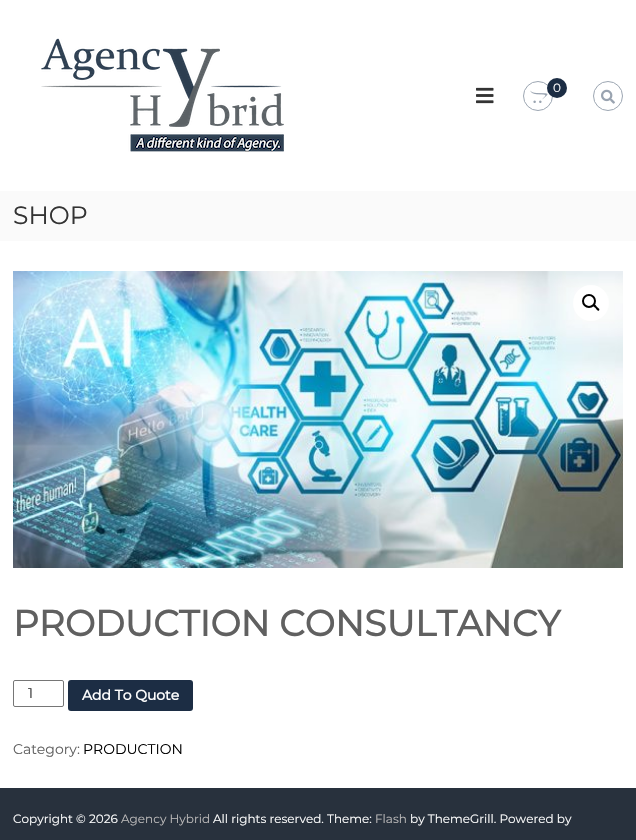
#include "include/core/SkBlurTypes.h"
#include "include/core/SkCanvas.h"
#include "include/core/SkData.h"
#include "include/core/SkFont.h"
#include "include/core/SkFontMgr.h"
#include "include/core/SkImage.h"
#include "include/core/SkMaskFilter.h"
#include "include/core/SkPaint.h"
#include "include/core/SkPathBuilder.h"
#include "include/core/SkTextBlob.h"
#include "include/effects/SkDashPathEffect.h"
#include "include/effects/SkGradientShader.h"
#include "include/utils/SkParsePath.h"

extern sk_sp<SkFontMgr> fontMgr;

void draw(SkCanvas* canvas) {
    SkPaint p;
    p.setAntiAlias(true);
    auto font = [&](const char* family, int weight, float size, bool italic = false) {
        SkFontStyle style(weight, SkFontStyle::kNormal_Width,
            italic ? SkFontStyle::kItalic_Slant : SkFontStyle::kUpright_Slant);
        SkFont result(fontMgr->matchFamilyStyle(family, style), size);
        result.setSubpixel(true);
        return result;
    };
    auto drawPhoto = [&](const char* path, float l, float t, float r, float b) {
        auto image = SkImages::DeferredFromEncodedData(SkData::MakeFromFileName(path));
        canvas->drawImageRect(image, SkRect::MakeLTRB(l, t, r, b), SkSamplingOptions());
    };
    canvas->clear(0xFFFFFFFF);
    drawPhoto("media/1.png", 41, 38, 284, 152);
    drawPhoto("media/2.png", 476, 87, 494, 104);
    p.setStyle(SkPaint::kStroke_Style);
    p.setStrokeWidth(1);
    p.setColor(0xFF9CA6B2);
    canvas->drawCircle(538, 96, 14.5f, p);
    drawPhoto("media/3.png", 530, 90, 548, 103);
    p.setStyle(SkPaint::kFill_Style);
    p.setColor(0xFF1C2D44);
    canvas->drawCircle(557, 88, 10, p);
    auto font1 = font("Montserrat", 400, 12);
    p.setColor(0xFFFFFFFF);
    canvas->drawString("0", 553, 92, font1, p);
    p.setStyle(SkPaint::kStroke_Style);
    p.setColor(0xFF9CA6B2);
    canvas->drawCircle(608, 96, 14.5f, p);
    drawPhoto("media/4.png", 601, 89, 615, 104);
    p.setStyle(SkPaint::kFill_Style);
    p.setColor(0xFFFAFAFA);
    canvas->drawRect(SkRect::MakeLTRB(0, 191, 636, 241), p);
    auto font2 = font("Montserrat", 400, 25);
    p.setColor(0xFF333333);
    canvas->drawString("SHOP", 13, 224, font2, p);
    drawPhoto("media/5.png", 13, 271, 623, 568);
    p.setColor(0xFFFFFFFF);
    canvas->drawCircle(591, 303, 18, p);
    p.setStyle(SkPaint::kStroke_Style);
    p.setStrokeWidth(2);
    p.setColor(0xFF000000);
    canvas->drawCircle(589, 301, 6, p);
    p.setStyle(SkPaint::kFill_Style);
    canvas->drawPath(SkPathBuilder().moveTo(593.5f, 304.5f).cubicTo(594.5f, 303.5f, 596.5f, 306, 597, 307).cubicTo(597.5f, 307.5f, 600.5f, 309, 599, 310.5f).cubicTo(598, 311.5f, 596, 309, 595.5f, 308).cubicTo(595, 307.5f, 592, 306, 593.5f, 304.5f).close().detach(), p);
    auto font3 = font("Montserrat", 700, 36);
    p.setColor(0xFF606060);
    canvas->drawString("PRODUCTION CONSULTANCY", 13, 636, font3, p);
    p.setStyle(SkPaint::kStroke_Style);
    p.setStrokeWidth(1);
    p.setColor(0xFF767676);
    canvas->drawRoundRect(SkRect::MakeLTRB(13.5f, 680.5f, 63.5f, 706.5f), 1.5f, 1.5f, p);
    auto font4 = font("Montserrat", 400, 14);
    p.setStyle(SkPaint::kFill_Style);
    p.setColor(0xFF333333);
    canvas->drawString("1", 28, 698, font4, p);
    p.setColor(0xFF1C2D44);
    canvas->drawRoundRect(SkRect::MakeLTRB(68, 680, 193, 711), 3, 3, p);
    auto font5 = font("Montserrat", 700, 14);
    p.setColor(0xFFFFFFFF);
    canvas->drawString("Add To Quote", 82, 700, font5, p);
    p.setColor(0xFF606060);
    canvas->drawString("Category:", 13, 754, font4, p);
    p.setColor(0xFF000000);
    canvas->drawString("PRODUCTION", 83, 754, font4, p);
    p.setColor(0xFF28313D);
    canvas->drawRect(SkRect::MakeLTRB(0, 788, 636, 840), p);
    p.setColor(0xFFFFFFFF);
    canvas->drawString("Copyright © 2026", 13, 823, font1, p);
    p.setColor(0xFFBCBABA);
    canvas->drawString("Agency Hybrid", 121, 823, font1, p);
    p.setColor(0xFFFFFFFF);
    canvas->drawString("All rights reserved. Theme:", 213, 823, font1, p);
    p.setColor(0xFFBCBABA);
    canvas->drawString("Flash", 375, 823, font1, p);
    p.setColor(0xFFFFFFFF);
    canvas->drawString("by ThemeGrill. Powered by", 410, 823, font1, p);
}
